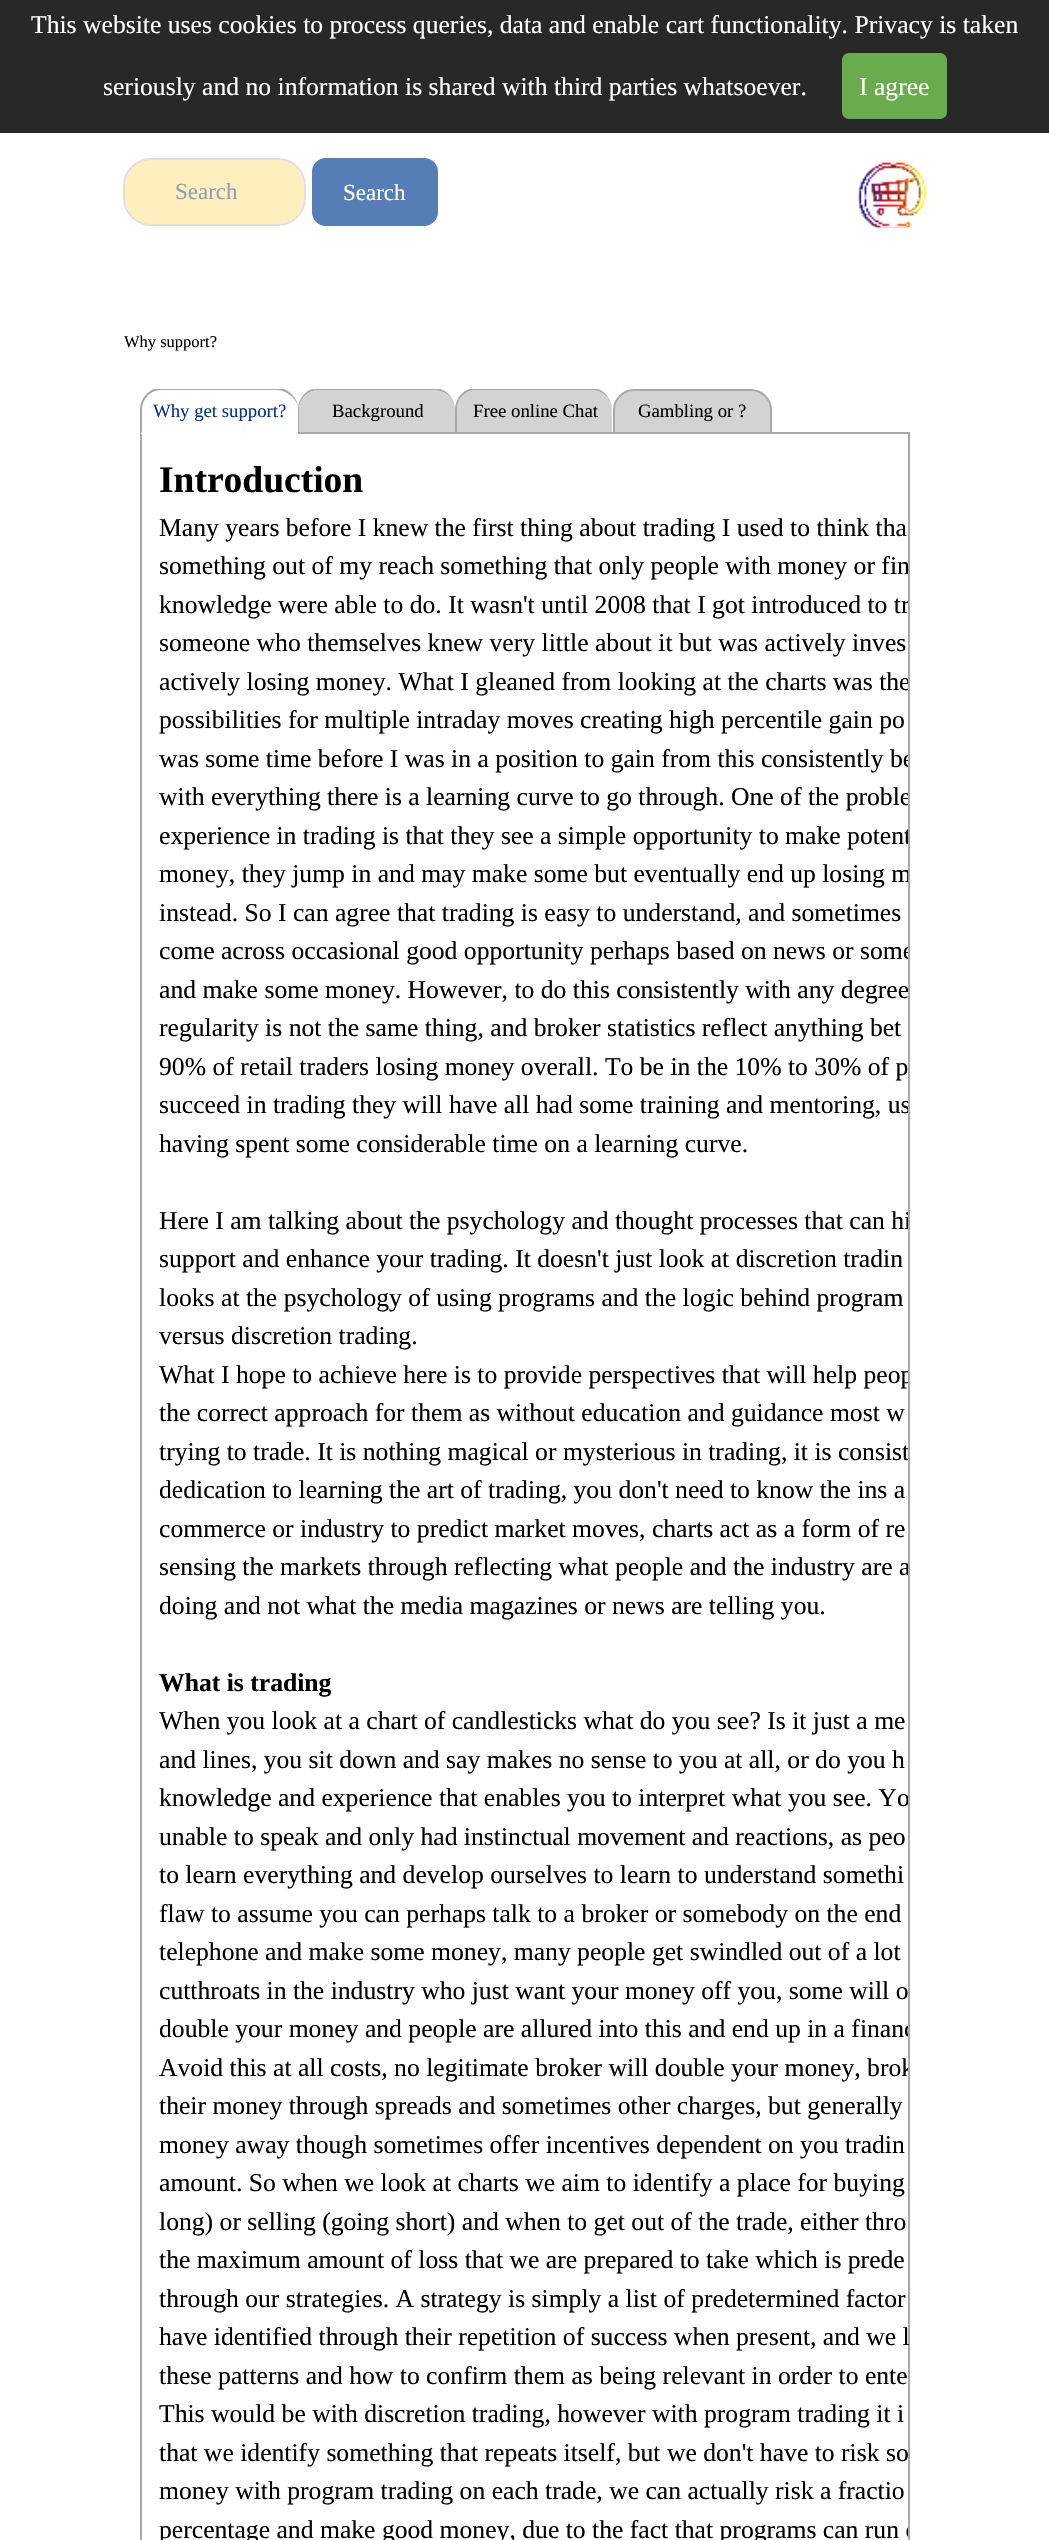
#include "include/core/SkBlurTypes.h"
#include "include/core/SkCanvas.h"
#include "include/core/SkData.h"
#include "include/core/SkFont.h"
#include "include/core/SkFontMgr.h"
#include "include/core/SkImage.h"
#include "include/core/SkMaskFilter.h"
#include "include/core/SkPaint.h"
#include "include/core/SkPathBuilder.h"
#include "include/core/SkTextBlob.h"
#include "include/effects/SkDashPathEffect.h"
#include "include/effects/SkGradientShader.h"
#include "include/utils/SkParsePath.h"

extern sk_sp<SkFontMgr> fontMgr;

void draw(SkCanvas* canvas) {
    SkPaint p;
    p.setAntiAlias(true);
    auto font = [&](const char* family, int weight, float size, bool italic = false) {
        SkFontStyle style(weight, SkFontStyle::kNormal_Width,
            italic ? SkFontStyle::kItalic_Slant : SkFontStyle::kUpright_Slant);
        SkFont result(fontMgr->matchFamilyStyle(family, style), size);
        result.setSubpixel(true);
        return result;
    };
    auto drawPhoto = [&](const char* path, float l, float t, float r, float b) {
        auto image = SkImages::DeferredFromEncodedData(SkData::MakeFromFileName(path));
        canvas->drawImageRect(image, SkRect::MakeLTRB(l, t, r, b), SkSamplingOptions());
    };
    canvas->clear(0xFFFFFFFF);
    p.setColor(0xFF282828);
    canvas->drawRect(SkRect::MakeLTRB(0, 0, 1049, 133), p);
    auto font1 = font("Liberation Serif", 400, 25.65f);
    p.setColor(0xFFFFFFFF);
    canvas->drawString("This website uses cookies to process queries, data and enable cart functionality. Privacy is taken", 31, 33, font1, p);
    canvas->drawString("seriously and no information is shared with third parties whatsoever.", 103, 95, font1, p);
    p.setColor(0xFF69AC4D);
    canvas->drawRoundRect(SkRect::MakeLTRB(842, 53, 947, 119), 7, 7, p);
    p.setColor(0xFFFFFFFF);
    canvas->drawString("I agree", 859, 95, font1, p);
    p.setColor(0xFFFFEFBF);
    canvas->drawRoundRect(SkRect::MakeLTRB(124, 159, 305, 225), 27, 27, p);
    p.setStyle(SkPaint::kStroke_Style);
    p.setStrokeWidth(2);
    p.setColor(0xFFE0E0E0);
    canvas->drawRoundRect(SkRect::MakeLTRB(124, 159, 305, 225), 27, 27, p);
    auto font2 = font("Liberation Serif", 400, 23);
    p.setStyle(SkPaint::kFill_Style);
    p.setColor(0xFF89A0B9);
    canvas->drawString("Search", 175, 199, font2, p);
    p.setColor(0xFF567EB6);
    canvas->drawRoundRect(SkRect::MakeLTRB(313, 159, 437, 225), 13, 13, p);
    p.setStyle(SkPaint::kStroke_Style);
    canvas->drawRoundRect(SkRect::MakeLTRB(313, 159, 437, 225), 13, 13, p);
    p.setStyle(SkPaint::kFill_Style);
    p.setColor(0xFFFFFFFF);
    canvas->drawString("Search", 343, 200, font2, p);
    drawPhoto("media/1.png", 857, 162, 927, 228);
    auto font3 = font("Liberation Serif", 400, 16.5f);
    p.setColor(0xFF000000);
    canvas->drawString("Why support?", 124, 347, font3, p);
    canvas->save();
    canvas->clipRect(SkRect::MakeLTRB(140, 389, 910, 434));
    p.setColor(0xFFA9A9A9);
    canvas->drawPath(SkPathBuilder().moveTo(161, 390).cubicTo(156, 390, 151, 392, 147, 396).lineTo(146, 394).cubicTo(149, 392, 152, 389, 156, 388).lineTo(281, 388).cubicTo(289, 390, 296, 397, 298, 405).lineTo(298, 406).cubicTo(295, 397, 286, 390, 276, 390).close().detach(), p);
    canvas->restore();
    canvas->drawRect(SkRect::MakeLTRB(140, 432, 910, 434), p);
    p.setColor(0xFFFFFFFF);
    canvas->drawPath(SkPathBuilder().moveTo(298, 434).lineTo(298, 432).lineTo(142, 432).lineTo(140, 434).close().detach(), p);
    p.setColor(0xFFA9A9A9);
    canvas->drawPath(SkPathBuilder().moveTo(140, 434).lineTo(142, 432).lineTo(142, 410).cubicTo(142, 404.5f, 144, 399.5f, 147.5f, 396).lineTo(146, 394.5f).cubicTo(142, 398.5f, 140, 404, 140, 410).close().detach(), p);
    auto font4 = font("Liberation Serif", 400, 18.75f);
    p.setColor(0xFF003399);
    canvas->drawString("Why get support?", 153, 417, font4, p);
    p.setColor(0xFFD3D3D3);
    canvas->drawPath(SkPathBuilder().moveTo(318, 390).lineTo(434, 390).cubicTo(446, 390, 455, 399, 455, 410).lineTo(455, 432).lineTo(299, 432).lineTo(299, 410).cubicTo(299, 399, 308, 390, 318, 390).close().detach(), p);
    canvas->save();
    canvas->clipRect(SkRect::MakeLTRB(140, 389, 910, 434));
    p.setColor(0xFFA9A9A9);
    canvas->drawPath(SkPathBuilder(SkPathFillType::kEvenOdd).moveTo(318, 388).lineTo(434, 388).cubicTo(446, 388, 455, 398, 455, 410).lineTo(455, 434).lineTo(298, 434).lineTo(298, 410).cubicTo(298, 398, 307, 388, 318, 388).close().moveTo(318, 390).lineTo(434, 390).cubicTo(446, 390, 455, 399, 455, 410).lineTo(455, 432).lineTo(299, 432).lineTo(299, 410).cubicTo(299, 399, 308, 390, 318, 390).close().detach(), p);
    canvas->restore();
    p.setColor(0xFF000000);
    canvas->drawString("Background", 332, 417, font4, p);
    p.setColor(0xFFD3D3D3);
    canvas->drawPath(SkPathBuilder().moveTo(476, 390).lineTo(592, 390).cubicTo(603, 390, 612, 399, 612, 410).lineTo(612, 432).lineTo(457, 432).lineTo(457, 410).cubicTo(457, 399, 465, 390, 476, 390).close().detach(), p);
    canvas->save();
    canvas->clipRect(SkRect::MakeLTRB(140, 389, 910, 434));
    p.setColor(0xFFA9A9A9);
    canvas->drawPath(SkPathBuilder(SkPathFillType::kEvenOdd).moveTo(476, 388).lineTo(592, 388).cubicTo(603, 388, 612, 398, 612, 410).lineTo(612, 434).lineTo(455, 434).lineTo(455, 410).cubicTo(455, 398, 464, 388, 476, 388).close().moveTo(476, 390).lineTo(592, 390).cubicTo(603, 390, 612, 399, 612, 410).lineTo(612, 432).lineTo(457, 432).lineTo(457, 410).cubicTo(457, 399, 465, 390, 476, 390).close().detach(), p);
    canvas->restore();
    p.setColor(0xFF000000);
    canvas->drawString("Free online Chat", 473, 417, font4, p);
    p.setColor(0xFFD3D3D3);
    canvas->drawPath(SkPathBuilder().moveTo(634, 390).lineTo(751, 390).cubicTo(762, 390, 771, 399, 771, 410).lineTo(771, 433).lineTo(614, 433).lineTo(614, 410).cubicTo(614, 399, 623, 390, 634, 390).close().detach(), p);
    p.setStyle(SkPaint::kStroke_Style);
    p.setColor(0xFFA9A9A9);
    canvas->drawPath(SkPathBuilder().moveTo(634, 390).lineTo(751, 390).cubicTo(762, 390, 771, 399, 771, 410).lineTo(771, 433).lineTo(614, 433).lineTo(614, 410).cubicTo(614, 399, 623, 390, 634, 390).close().detach(), p);
    p.setStyle(SkPaint::kFill_Style);
    p.setColor(0xFF000000);
    canvas->drawString("Gambling or ?", 638, 417, font4, p);
    p.setColor(0xFFA9A9A9);
    canvas->drawRect(SkRect::MakeLTRB(908, 434, 910, 2540), p);
    canvas->drawRect(SkRect::MakeLTRB(140, 434, 142, 2540), p);
    auto font5 = font("Liberation Serif", 700, 37.5f);
    p.setColor(0xFF000000);
    canvas->drawString("Introduction", 159, 492, font5, p);
    canvas->drawString("Many years before I knew the first thing about trading I used to think tha", 159, 536, font1, p);
    canvas->save();
    canvas->clipRect(SkRect::MakeLTRB(142, 434, 908, 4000));
    canvas->drawString("something out of my reach something that only people with money or fin", 159, 574, font1, p);
    canvas->drawString("knowledge were able to do. It wasn't until 2008 that I got introduced to tr", 159, 613, font1, p);
    canvas->restore();
    canvas->drawString("someone who themselves knew very little about it but was actively inves", 159, 651, font1, p);
    canvas->save();
    canvas->clipRect(SkRect::MakeLTRB(142, 434, 908, 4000));
    canvas->drawString("actively losing money. What I gleaned from looking at the charts was the", 159, 690, font1, p);
    canvas->restore();
    canvas->drawString("possibilities for multiple intraday moves creating high percentile gain po", 159, 728, font1, p);
    canvas->save();
    canvas->clipRect(SkRect::MakeLTRB(142, 434, 908, 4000));
    {
        const struct { const char* s; float x, y; } items[] = {
            {"was some time before I was in a position to gain from this consistently be", 159, 767},
            {"with everything there is a learning curve to go through. One of the proble", 159, 805},
            {"experience in trading is that they see a simple opportunity to make potent", 159, 844},
            {"money, they jump in and may make some but eventually end up losing m", 159, 882},
        };
        for (auto [s, x, y] : items) {
            canvas->drawString(s, x, y, font1, p);
        }
    }
    canvas->restore();
    canvas->drawString("instead. So I can agree that trading is easy to understand, and sometimes", 159, 921, font1, p);
    canvas->save();
    canvas->clipRect(SkRect::MakeLTRB(142, 434, 908, 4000));
    canvas->drawString("come across occasional good opportunity perhaps based on news or some", 159, 959, font1, p);
    canvas->drawString("and make some money. However, to do this consistently with any degree", 159, 998, font1, p);
    canvas->restore();
    canvas->drawString("regularity is not the same thing, and broker statistics reflect anything bet", 159, 1036, font1, p);
    canvas->drawString("90% of retail traders losing money overall. To be in the 10% to 30% of p", 159, 1075, font1, p);
    canvas->save();
    canvas->clipRect(SkRect::MakeLTRB(142, 434, 908, 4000));
    canvas->drawString("succeed in trading they will have all had some training and mentoring, us", 159, 1113, font1, p);
    canvas->restore();
    canvas->drawString("having spent some considerable time on a learning curve.", 159, 1152, font1, p);
    canvas->save();
    canvas->clipRect(SkRect::MakeLTRB(142, 434, 908, 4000));
    canvas->drawString("Here I am talking about the psychology and thought processes that can hi", 159, 1229, font1, p);
    canvas->restore();
    {
        const struct { const char* s; float x, y; } items[] = {
            {"support and enhance your trading. It doesn't just look at discretion tradin", 159, 1267},
            {"looks at the psychology of using programs and the logic behind program", 159, 1306},
            {"versus discretion trading.", 159, 1344},
        };
        for (auto [s, x, y] : items) {
            canvas->drawString(s, x, y, font1, p);
        }
    }
    canvas->save();
    canvas->clipRect(SkRect::MakeLTRB(142, 434, 908, 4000));
    canvas->drawString("What I hope to achieve here is to provide perspectives that will help peop", 159, 1383, font1, p);
    canvas->restore();
    canvas->drawString("the correct approach for them as without education and guidance most w", 159, 1421, font1, p);
    canvas->save();
    canvas->clipRect(SkRect::MakeLTRB(142, 434, 908, 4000));
    canvas->drawString("trying to trade. It is nothing magical or mysterious in trading, it is consist", 159, 1460, font1, p);
    canvas->restore();
    canvas->drawString("dedication to learning the art of trading, you don't need to know the ins a", 159, 1498, font1, p);
    canvas->drawString("commerce or industry to predict market moves, charts act as a form of re", 159, 1537, font1, p);
    canvas->save();
    canvas->clipRect(SkRect::MakeLTRB(142, 434, 908, 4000));
    canvas->drawString("sensing the markets through reflecting what people and the industry are a", 159, 1575, font1, p);
    canvas->restore();
    canvas->drawString("doing and not what the media magazines or news are telling you.", 159, 1614, font1, p);
    auto font6 = font("Liberation Serif", 700, 25.65f);
    canvas->drawString("What is trading", 159, 1691, font6, p);
    canvas->drawString("When you look at a chart of candlesticks what do you see? Is it just a me", 159, 1729, font1, p);
    canvas->drawString("and lines, you sit down and say makes no sense to you at all, or do you h", 159, 1768, font1, p);
    canvas->save();
    canvas->clipRect(SkRect::MakeLTRB(142, 434, 908, 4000));
    canvas->drawString("knowledge and experience that enables you to interpret what you see. Yo", 159, 1806, font1, p);
    canvas->restore();
    {
        const struct { const char* s; float x, y; } items[] = {
            {"unable to speak and only had instinctual movement and reactions, as peo", 159, 1845},
            {"to learn everything and develop ourselves to learn to understand somethi", 159, 1883},
            {"flaw to assume you can perhaps talk to a broker or somebody on the end", 159, 1922},
            {"telephone and make some money, many people get swindled out of a lot", 159, 1960},
            {"cutthroats in the industry who just want your money off you, some will o", 159, 1999},
        };
        for (auto [s, x, y] : items) {
            canvas->drawString(s, x, y, font1, p);
        }
    }
    canvas->save();
    canvas->clipRect(SkRect::MakeLTRB(142, 434, 908, 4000));
    canvas->drawString("double your money and people are allured into this and end up in a financ", 159, 2037, font1, p);
    canvas->drawString("Avoid this at all costs, no legitimate broker will double your money, brok", 159, 2076, font1, p);
    canvas->restore();
    {
        const struct { const char* s; float x, y; } items[] = {
            {"their money through spreads and sometimes other charges, but generally", 159, 2114},
            {"money away though sometimes offer incentives dependent on you tradin", 159, 2153},
            {"amount. So when we look at charts we aim to identify a place for buying", 159, 2191},
            {"long) or selling (going short) and when to get out of the trade, either thro", 159, 2230},
            {"the maximum amount of loss that we are prepared to take which is prede", 159, 2268},
            {"through our strategies. A strategy is simply a list of predetermined factor", 159, 2307},
            {"have identified through their repetition of success when present, and we l", 159, 2345},
            {"these patterns and how to confirm them as being relevant in order to ente", 159, 2384},
            {"This would be with discretion trading, however with program trading it i", 159, 2422},
            {"that we identify something that repeats itself, but we don't have to risk so", 159, 2461},
            {"money with program trading on each trade, we can actually risk a fractio", 159, 2499},
        };
        for (auto [s, x, y] : items) {
            canvas->drawString(s, x, y, font1, p);
        }
    }
    canvas->save();
    canvas->clipRect(SkRect::MakeLTRB(142, 434, 908, 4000));
    canvas->drawString("percentage and make good money, due to the fact that programs can run c", 159, 2538, font1, p);
    canvas->restore();
}
